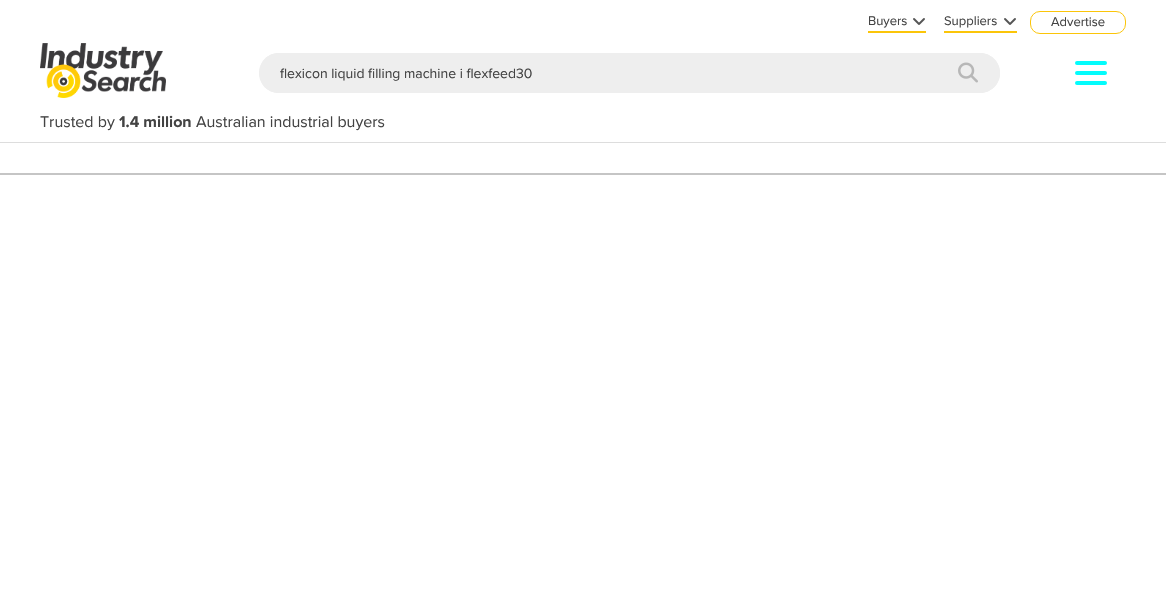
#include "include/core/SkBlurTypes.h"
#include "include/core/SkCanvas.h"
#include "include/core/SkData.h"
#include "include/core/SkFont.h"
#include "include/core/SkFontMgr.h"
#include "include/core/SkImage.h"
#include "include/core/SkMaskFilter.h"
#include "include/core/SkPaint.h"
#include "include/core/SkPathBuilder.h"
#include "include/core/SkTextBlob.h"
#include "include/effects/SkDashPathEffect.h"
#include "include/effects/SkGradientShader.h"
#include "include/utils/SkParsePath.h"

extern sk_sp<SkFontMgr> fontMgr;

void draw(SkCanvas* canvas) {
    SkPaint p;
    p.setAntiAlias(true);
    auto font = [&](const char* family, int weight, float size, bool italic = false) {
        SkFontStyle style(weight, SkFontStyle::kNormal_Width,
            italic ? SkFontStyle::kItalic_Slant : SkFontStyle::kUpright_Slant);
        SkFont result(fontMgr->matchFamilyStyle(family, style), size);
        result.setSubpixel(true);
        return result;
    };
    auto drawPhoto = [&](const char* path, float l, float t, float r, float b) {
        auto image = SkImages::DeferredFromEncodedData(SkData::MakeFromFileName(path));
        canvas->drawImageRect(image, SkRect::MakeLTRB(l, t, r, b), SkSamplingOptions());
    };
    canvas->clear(0xFFFFFFFF);
    p.setColor(0xFFDDDDDD);
    canvas->drawRect(SkRect::MakeLTRB(0, 142, 1166, 143), p);
    p.setColor(0xFFFBC509);
    canvas->drawRect(SkRect::MakeLTRB(868, 31, 926, 33), p);
    auto font1 = font("Proxima Nova", 400, 13);
    p.setColor(0xFF434343);
    canvas->drawString("Buyers", 868, 25, font1, p);
    drawPhoto("media/1.png", 913, 18, 925, 25);
    p.setColor(0xFFFBC509);
    canvas->drawRect(SkRect::MakeLTRB(944, 31, 1017, 33), p);
    p.setColor(0xFF434343);
    canvas->drawString("Suppliers", 944, 25, font1, p);
    drawPhoto("media/1.png", 1004, 18, 1016, 25);
    p.setStyle(SkPaint::kStroke_Style);
    p.setStrokeWidth(1);
    p.setColor(0xFFFBC509);
    canvas->drawRoundRect(SkRect::MakeLTRB(1030.5f, 11.5f, 1125.5f, 33.5f), 9.5f, 9.5f, p);
    p.setStyle(SkPaint::kFill_Style);
    p.setColor(0xFF434343);
    canvas->drawString("Advertise", 1051, 26, font1, p);
    drawPhoto("media/2.png", 40, 43, 166, 98);
    p.setColor(0xFFEEEEEE);
    canvas->drawPath(SkPathBuilder().moveTo(279, 53).lineTo(952, 53).lineTo(952, 93).lineTo(279, 93).cubicTo(268, 93, 259, 84, 259, 73).cubicTo(259, 62, 268, 53, 279, 53).close().detach(), p);
    canvas->drawPath(SkPathBuilder(SkPathFillType::kEvenOdd).moveTo(279, 53).lineTo(952, 53).lineTo(952, 93).lineTo(279, 93).cubicTo(253, 93, 253, 53, 279, 53).close().moveTo(279, 54).lineTo(952, 54).lineTo(952, 92).lineTo(279, 92).cubicTo(254, 92, 254, 54, 279, 54).close().detach(), p);
    auto font2 = font("Proxima Nova", 400, 14);
    p.setColor(0xFF434343);
    canvas->drawString("flexicon liquid filling machine i flexfeed30", 280, 78, font2, p);
    p.setColor(0xFFEEEEEE);
    canvas->drawPath(SkPathBuilder().moveTo(952, 53).lineTo(980, 53).cubicTo(991, 53, 1000, 62, 1000, 73).cubicTo(1000, 84, 991, 93, 980, 93).lineTo(952, 93).close().detach(), p);
    canvas->drawPath(SkPathBuilder(SkPathFillType::kEvenOdd).moveTo(952, 53).lineTo(980, 53).cubicTo(991, 53, 1000, 62, 1000, 73).cubicTo(1000, 84, 991, 93, 980, 93).lineTo(952, 93).close().moveTo(952, 54).lineTo(980, 54).cubicTo(990, 54, 999, 63, 999, 73).cubicTo(999, 83, 990, 92, 980, 92).lineTo(952, 92).close().detach(), p);
    drawPhoto("media/3.png", 958, 62, 978, 83);
    p.setStyle(SkPaint::kStroke_Style);
    p.setStrokeWidth(4);
    p.setStrokeCap(SkPaint::kRound_Cap);
    p.setStrokeJoin(SkPaint::kRound_Join);
    p.setColor(0xFF03FCFC);
    canvas->drawPath(SkPathBuilder().moveTo(1077, 83).lineTo(1105, 83).moveTo(1077, 73).lineTo(1105, 73).moveTo(1077, 63).lineTo(1105, 63).detach(), p);
    auto font3 = font("Proxima Nova", 400, 16);
    p.setStyle(SkPaint::kFill_Style);
    p.setColor(0xFF434343);
    canvas->drawString("Trusted by", 40, 127, font3, p);
    auto font4 = font("Proxima Nova", 700, 16);
    canvas->drawString("1.4 million", 119, 127, font4, p);
    canvas->drawString("Australian industrial buyers", 196, 127, font3, p);
    p.setColor(0xFFC5C5C5);
    canvas->drawRect(SkRect::MakeLTRB(0, 173, 1166, 175), p);
}
